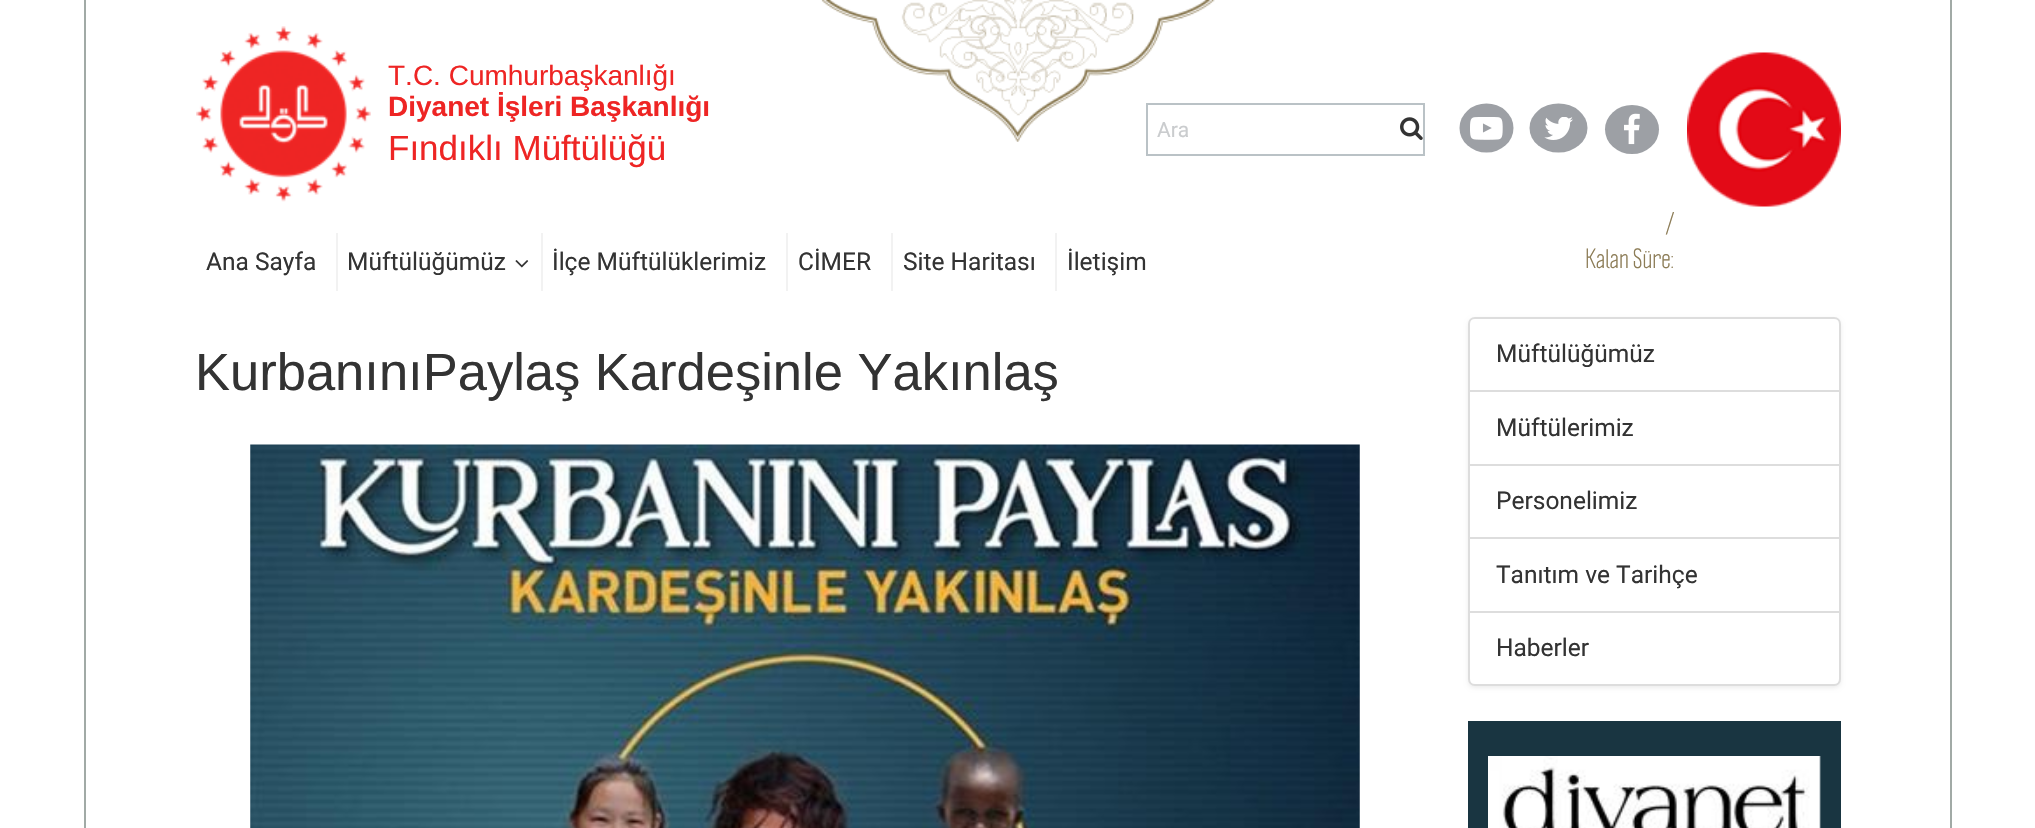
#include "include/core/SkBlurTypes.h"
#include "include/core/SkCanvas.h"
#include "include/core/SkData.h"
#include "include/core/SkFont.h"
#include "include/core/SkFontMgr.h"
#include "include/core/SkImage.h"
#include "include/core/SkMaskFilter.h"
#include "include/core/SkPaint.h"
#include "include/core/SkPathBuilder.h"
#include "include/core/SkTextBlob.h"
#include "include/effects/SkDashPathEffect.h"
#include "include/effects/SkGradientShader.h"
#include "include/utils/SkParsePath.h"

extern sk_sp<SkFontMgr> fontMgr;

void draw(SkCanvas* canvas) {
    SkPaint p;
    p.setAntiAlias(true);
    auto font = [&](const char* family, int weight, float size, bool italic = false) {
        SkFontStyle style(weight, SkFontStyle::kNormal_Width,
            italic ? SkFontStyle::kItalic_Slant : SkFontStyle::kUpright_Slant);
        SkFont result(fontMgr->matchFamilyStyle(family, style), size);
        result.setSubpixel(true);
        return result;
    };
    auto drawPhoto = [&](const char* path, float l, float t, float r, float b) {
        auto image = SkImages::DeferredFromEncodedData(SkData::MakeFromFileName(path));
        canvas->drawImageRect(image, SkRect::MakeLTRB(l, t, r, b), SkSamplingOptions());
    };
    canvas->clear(0xFFFFFFFF);
    p.setColor(0xFFA1AAA6);
    canvas->drawRect(SkRect::MakeLTRB(1950, 0, 1952, 828), p);
    canvas->drawRect(SkRect::MakeLTRB(84, 0, 86, 828), p);
    drawPhoto("media/1.png", 821, 0, 1215, 142);
    drawPhoto("media/2.png", 196, 26, 371, 202);
    auto font1 = font("Liberation Sans", 400, 28);
    p.setColor(0xFFEE2524);
    canvas->drawString("T.C. Cumhurbaşkanlığı", 388, 85, font1, p);
    auto font2 = font("Liberation Sans", 700, 28);
    canvas->drawString("Diyanet İşleri Başkanlığı", 388, 116, font2, p);
    auto font3 = font("Liberation Sans", 400, 35);
    canvas->drawString("Fındıklı Müftülüğü", 388, 160, font3, p);
    p.setStyle(SkPaint::kStroke_Style);
    p.setStrokeWidth(2);
    p.setColor(0xFFBAC2C6);
    canvas->drawRect(SkRect::MakeLTRB(1147, 104, 1424, 155), p);
    auto font4 = font("Roboto", 400, 21);
    p.setStyle(SkPaint::kFill_Style);
    p.setColor(0xFFCACCCE);
    canvas->drawString("Ara", 1157, 137, font4, p);
    drawPhoto("media/3.png", 1400, 117, 1423, 140);
    p.setColor(0xFF9DA0A5);
    canvas->drawOval(SkRect::MakeLTRB(1459.5f, 103.5f, 1513.5f, 152.5f), p);
    drawPhoto("media/4.png", 1470, 117, 1503, 140);
    canvas->drawOval(SkRect::MakeLTRB(1529.5f, 103.5f, 1587.5f, 152.5f), p);
    drawPhoto("media/5.png", 1544, 117, 1573, 140);
    canvas->drawOval(SkRect::MakeLTRB(1605, 105, 1659, 154), p);
    drawPhoto("media/6.png", 1624, 113, 1640, 145);
    drawPhoto("media/7.png", 1687, 52, 1841, 207);
    p.setColor(0xFFF2F2F2);
    canvas->drawRect(SkRect::MakeLTRB(336, 233, 338, 291), p);
    auto font5 = font("Roboto", 400, 24.5f);
    p.setColor(0xFF333333);
    canvas->drawString("Ana Sayfa", 206, 270, font5, p);
    p.setColor(0xFFF2F2F2);
    canvas->drawRect(SkRect::MakeLTRB(541, 233, 543, 291), p);
    p.setColor(0xFF333333);
    canvas->drawString("Müftülüğümüz", 347, 270, font5, p);
    drawPhoto("media/8.png", 515, 260, 529, 268);
    p.setColor(0xFFF2F2F2);
    canvas->drawRect(SkRect::MakeLTRB(786, 233, 788, 291), p);
    p.setColor(0xFF333333);
    canvas->drawString("İlçe Müftülüklerimiz", 552, 270, font5, p);
    p.setColor(0xFFF2F2F2);
    canvas->drawRect(SkRect::MakeLTRB(891, 233, 893, 291), p);
    p.setColor(0xFF333333);
    canvas->drawString("CİMER", 798, 270, font5, p);
    p.setColor(0xFFF2F2F2);
    canvas->drawRect(SkRect::MakeLTRB(1055, 233, 1057, 291), p);
    p.setColor(0xFF333333);
    canvas->drawString("Site Haritası", 903, 270, font5, p);
    canvas->drawString("İletişim", 1067, 270, font5, p);
    auto font6 = font("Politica", 400, 24.5f);
    p.setColor(0xFF8C7C56);
    canvas->drawString("/", 1666, 233, font6, p);
    canvas->drawString("Kalan Süre:", 1585, 268, font6, p);
    auto font7 = font("Liberation Sans", 400, 52.5f);
    p.setColor(0xFF333333);
    canvas->drawString("KurbanınıPaylaş Kardeşinle Yakınlaş", 195, 390, font7, p);
    drawPhoto("media/9.png", 250, 444, 1360, 828);
    p.setColor(0x12000000);
    p.setMaskFilter(SkMaskFilter::MakeBlur(kNormal_SkBlurStyle, 2));
    canvas->drawRoundRect(SkRect::MakeLTRB(1468, 319, 1841, 688), 7, 7, p);
    p.setMaskFilter(nullptr);
    p.setColor(0xFFFFFFFF);
    canvas->drawPath(SkPathBuilder().moveTo(1475, 318).lineTo(1834, 318).cubicTo(1837.5f, 318, 1840, 320.5f, 1840, 324).lineTo(1840, 391).lineTo(1469, 391).lineTo(1469, 324).cubicTo(1469, 320.5f, 1471.5f, 318, 1475, 318).close().detach(), p);
    p.setStyle(SkPaint::kStroke_Style);
    p.setColor(0xFFDDDDDD);
    canvas->drawPath(SkPathBuilder().moveTo(1475, 318).lineTo(1834, 318).cubicTo(1837.5f, 318, 1840, 320.5f, 1840, 324).lineTo(1840, 391).lineTo(1469, 391).lineTo(1469, 324).cubicTo(1469, 320.5f, 1471.5f, 318, 1475, 318).close().detach(), p);
    p.setStyle(SkPaint::kFill_Style);
    p.setColor(0xFF333333);
    canvas->drawString("Müftülüğümüz", 1496, 362, font5, p);
    p.setColor(0xFFFFFFFF);
    canvas->drawRect(SkRect::MakeLTRB(1469, 391, 1840, 465), p);
    p.setStyle(SkPaint::kStroke_Style);
    p.setColor(0xFFDDDDDD);
    canvas->drawRect(SkRect::MakeLTRB(1469, 391, 1840, 465), p);
    p.setStyle(SkPaint::kFill_Style);
    p.setColor(0xFF333333);
    canvas->drawString("Müftülerimiz", 1496, 436, font5, p);
    p.setColor(0xFFFFFFFF);
    canvas->drawRect(SkRect::MakeLTRB(1469, 465, 1840, 538), p);
    p.setStyle(SkPaint::kStroke_Style);
    p.setColor(0xFFDDDDDD);
    canvas->drawRect(SkRect::MakeLTRB(1469, 465, 1840, 538), p);
    p.setStyle(SkPaint::kFill_Style);
    p.setColor(0xFF333333);
    canvas->drawString("Personelimiz", 1496, 509, font5, p);
    p.setColor(0xFFFFFFFF);
    canvas->drawRect(SkRect::MakeLTRB(1469, 538, 1840, 612), p);
    p.setStyle(SkPaint::kStroke_Style);
    p.setColor(0xFFDDDDDD);
    canvas->drawRect(SkRect::MakeLTRB(1469, 538, 1840, 612), p);
    p.setStyle(SkPaint::kFill_Style);
    p.setColor(0xFF333333);
    canvas->drawString("Tanıtım ve Tarihçe", 1496, 583, font5, p);
    p.setColor(0xFFFFFFFF);
    canvas->drawPath(SkPathBuilder().moveTo(1469, 612).lineTo(1840, 612).lineTo(1840, 679).cubicTo(1840, 682.5f, 1837.5f, 685, 1834, 685).lineTo(1475, 685).cubicTo(1471.5f, 685, 1469, 682.5f, 1469, 679).close().detach(), p);
    p.setStyle(SkPaint::kStroke_Style);
    p.setColor(0xFFDDDDDD);
    canvas->drawPath(SkPathBuilder().moveTo(1469, 612).lineTo(1840, 612).lineTo(1840, 679).cubicTo(1840, 682.5f, 1837.5f, 685, 1834, 685).lineTo(1475, 685).cubicTo(1471.5f, 685, 1469, 682.5f, 1469, 679).close().detach(), p);
    p.setStyle(SkPaint::kFill_Style);
    p.setColor(0xFF333333);
    canvas->drawString("Haberler", 1496, 656, font5, p);
    p.setColor(0xFF193541);
    canvas->drawRect(SkRect::MakeLTRB(1468, 721, 1841, 828), p);
    drawPhoto("media/10.png", 1488, 756, 1821, 828);
}
